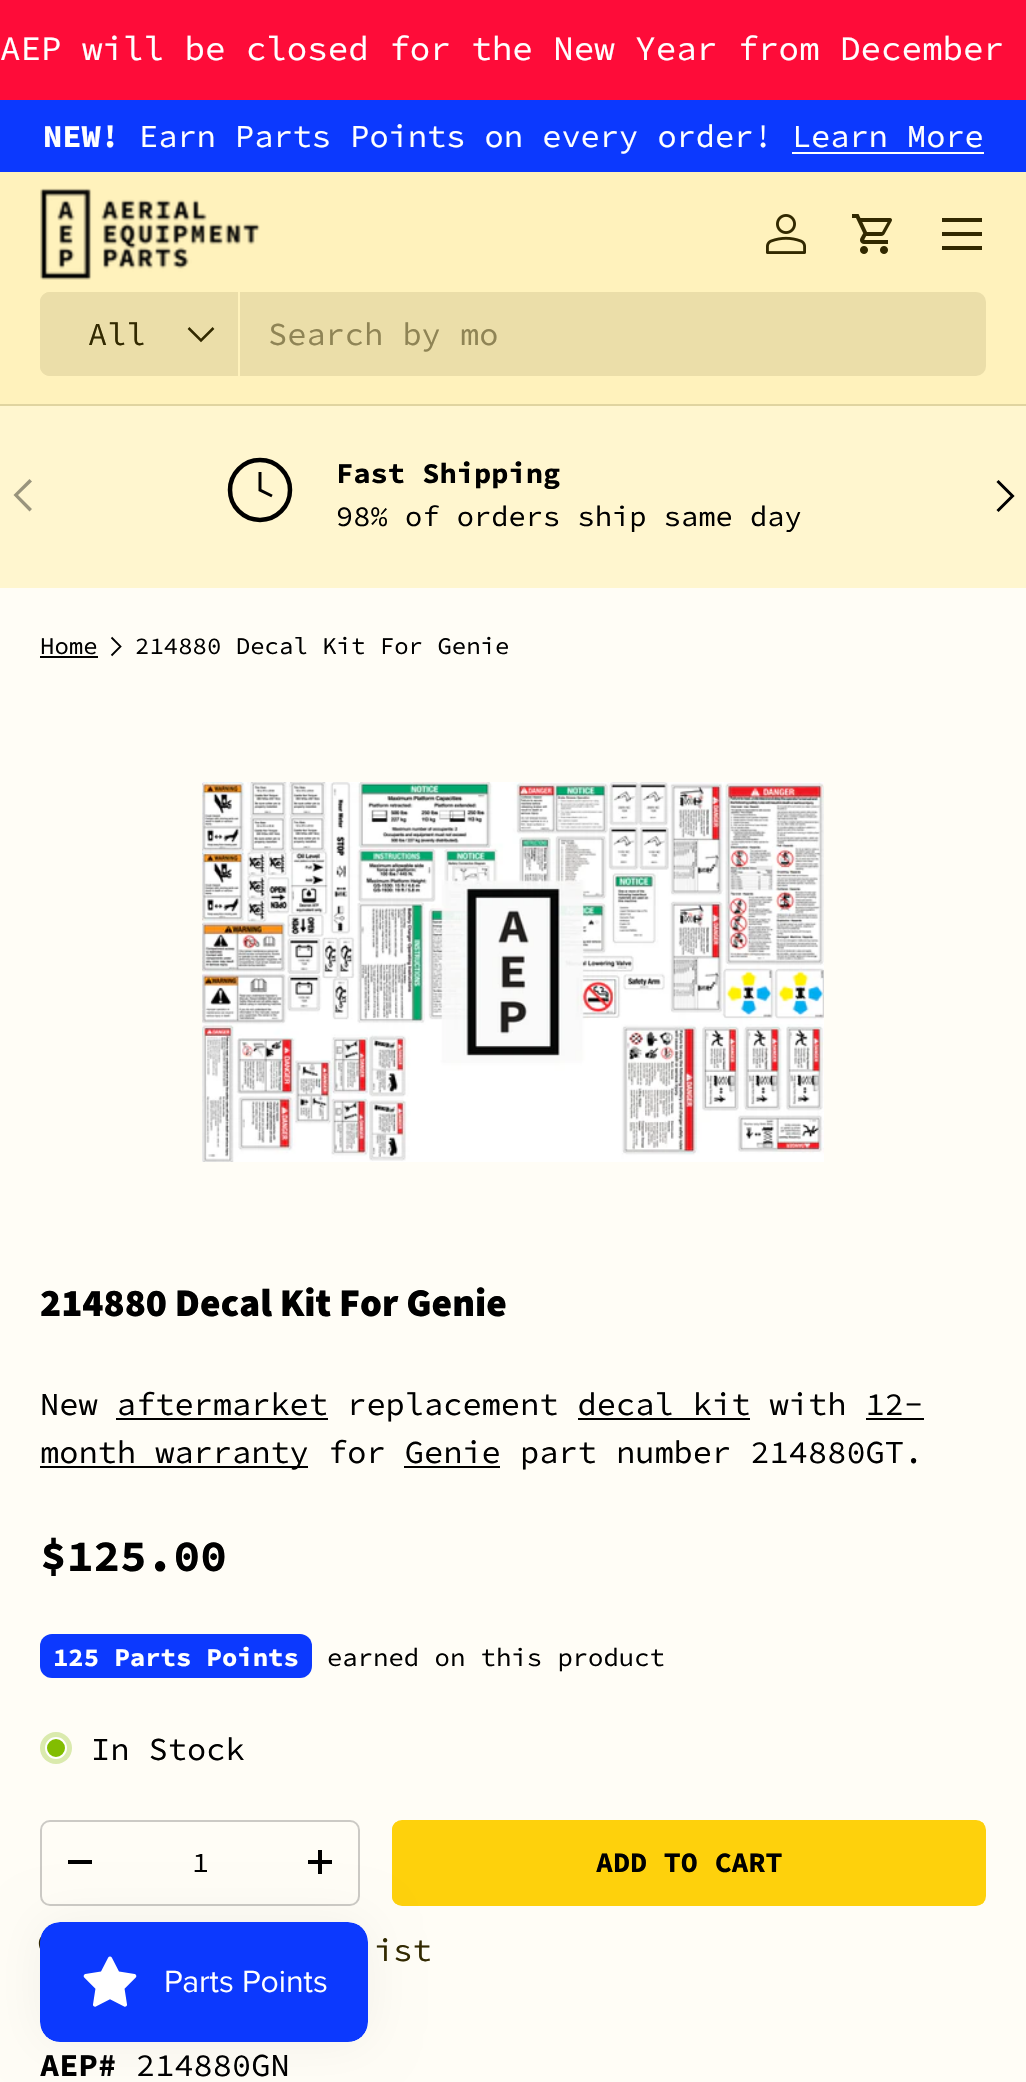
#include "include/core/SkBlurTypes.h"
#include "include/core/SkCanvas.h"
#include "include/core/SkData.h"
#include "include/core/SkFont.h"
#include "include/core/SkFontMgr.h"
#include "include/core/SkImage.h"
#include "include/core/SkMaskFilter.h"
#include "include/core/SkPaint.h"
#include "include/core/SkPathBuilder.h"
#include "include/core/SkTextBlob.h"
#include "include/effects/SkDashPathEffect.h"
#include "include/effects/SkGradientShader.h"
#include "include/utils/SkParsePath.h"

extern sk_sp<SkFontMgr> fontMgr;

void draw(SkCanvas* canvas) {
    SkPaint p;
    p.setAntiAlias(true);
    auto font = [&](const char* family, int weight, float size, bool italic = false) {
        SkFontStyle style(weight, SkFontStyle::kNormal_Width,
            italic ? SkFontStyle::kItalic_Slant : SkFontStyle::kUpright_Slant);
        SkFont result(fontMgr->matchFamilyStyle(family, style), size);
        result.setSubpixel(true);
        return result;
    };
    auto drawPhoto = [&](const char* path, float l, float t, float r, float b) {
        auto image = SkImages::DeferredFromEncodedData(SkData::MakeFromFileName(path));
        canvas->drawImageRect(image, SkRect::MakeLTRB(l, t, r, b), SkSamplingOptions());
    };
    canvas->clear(0xFFFFFDF6);
    p.setColor(0xFFFE0C39);
    canvas->drawRect(SkRect::MakeLTRB(0, 0, 1026, 100), p);
    auto font1 = font("Source Code Pro", 400, 34.15f);
    p.setColor(0xFFFFFFFF);
    canvas->drawString("AEP will be closed for the New Year from December", 0, 60, font1, p);
    p.setColor(0xFF0C39FE);
    canvas->drawRect(SkRect::MakeLTRB(0, 100, 1026, 172), p);
    auto font2 = font("Source Code Pro", 700, 32);
    p.setColor(0xFFFFFFFF);
    canvas->drawString("NEW!", 43, 147, font2, p);
    auto font3 = font("Source Code Pro", 400, 32);
    canvas->drawString("Earn Parts Points on every order! Learn More", 139, 147, font3, p);
    {
        const struct { float l, t, r, b; SkColor color; } items[] = {
            {792, 152, 984, 154, 0xFFFFFFFF},
            {0, 172, 1026, 404, 0xFFFFF2BC},
            {0, 404, 1026, 406, 0xFFE0D4A0},
        };
        for (auto [l, t, r, b, color] : items) {
            p.setColor(color);
            canvas->drawRect(SkRect::MakeLTRB(l, t, r, b), p);
        }
    }
    drawPhoto("media/1.png", 40, 188, 260, 280);
    drawPhoto("media/2.png", 766, 214, 806, 254);
    drawPhoto("media/3.png", 852, 214, 892, 254);
    {
        const struct { float l, t, r, b; SkColor color; } items[] = {
            {942, 218, 982, 222, 0xFF322900},
            {942, 246, 982, 250, 0xFF322900},
            {942, 232, 982, 236, 0xFF322900},
        };
        for (auto [l, t, r, b, color] : items) {
            p.setColor(color);
            canvas->drawRect(SkRect::MakeLTRB(l, t, r, b), p);
        }
    }
    p.setColor(0xFFEBDEA9);
    canvas->drawRoundRect(SkRect::MakeLTRB(40, 292, 986, 376), 10, 10, p);
    canvas->drawPath(SkPathBuilder().moveTo(50, 292).lineTo(240, 292).lineTo(240, 376).lineTo(50, 376).cubicTo(44.5f, 376, 40, 371.5f, 40, 366).lineTo(40, 302).cubicTo(40, 296.5f, 44.5f, 292, 50, 292).close().detach(), p);
    p.setColor(0xFFFFF2BC);
    canvas->drawRect(SkRect::MakeLTRB(238, 292, 240, 376), p);
    p.setColor(0xFF322900);
    canvas->drawString("All", 88, 345, font3, p);
    p.setStyle(SkPaint::kStroke_Style);
    p.setStrokeWidth(2.5f);
    canvas->drawPath(SkPathBuilder().moveTo(213.5f, 328).lineTo(201, 340.5f).lineTo(188.5f, 328).detach(), p);
    p.setStyle(SkPaint::kFill_Style);
    p.setColor(0xFF8F8455);
    canvas->drawString("Search by mo", 268, 345, font3, p);
    p.setColor(0xFFFFF6CF);
    canvas->drawRect(SkRect::MakeLTRB(0, 406, 1026, 588), p);
    p.setStyle(SkPaint::kStroke_Style);
    p.setStrokeWidth(4.5f);
    p.setColor(0xFF000000);
    canvas->drawCircle(260, 490, 30, p);
    p.setStrokeWidth(3);
    canvas->drawPath(SkPathBuilder().moveTo(260, 472).lineTo(260, 490).lineTo(272, 496).detach(), p);
    auto font4 = font("Source Code Pro", 700, 28.75f);
    p.setStyle(SkPaint::kFill_Style);
    canvas->drawString("Fast Shipping", 336, 483, font4, p);
    auto font5 = font("Source Code Pro", 400, 28.75f);
    canvas->drawString("98% of orders ship same day", 336, 526, font5, p);
    p.setColor(0xFF99947C);
    canvas->drawPath(SkPathBuilder().moveTo(13.5f, 495).lineTo(29.5f, 479).lineTo(32, 481.5f).lineTo(18, 495).lineTo(32, 509).lineTo(29.5f, 511.5f).close().detach(), p);
    p.setStyle(SkPaint::kStroke_Style);
    p.setColor(0xFF000000);
    canvas->drawPath(SkPathBuilder().moveTo(997.5f, 481).lineTo(1012.5f, 496).lineTo(997.5f, 511).detach(), p);
    auto font6 = font("Source Code Pro", 400, 24);
    p.setStyle(SkPaint::kFill_Style);
    canvas->drawString("Home", 40, 654, font6, p);
    canvas->drawRect(SkRect::MakeLTRB(40, 656, 98, 658), p);
    p.setStyle(SkPaint::kStroke_Style);
    p.setStrokeWidth(1.8f);
    canvas->drawPath(SkPathBuilder().moveTo(111.5f, 637.5f).lineTo(120.5f, 646.5f).lineTo(111.5f, 655.5f).detach(), p);
    p.setStyle(SkPaint::kFill_Style);
    canvas->drawString("214880 Decal Kit For Genie", 135, 654, font6, p);
    drawPhoto("media/4.png", 202, 782, 824, 1162);
    auto font7 = font("Source Sans Pro", 900, 39.2f);
    canvas->drawString("214880 Decal Kit For Genie", 40, 1316, font7, p);
    canvas->drawString("New aftermarket replacement decal kit with 12-", 40, 1415, font3, p);
    {
        const struct { float l, t, r, b; SkColor color; } items[] = {
            {116, 1418, 328, 1420, 0xFF000000},
            {578, 1418, 750, 1420, 0xFF000000},
            {40, 1466, 308, 1468, 0xFF000000},
        };
        for (auto [l, t, r, b, color] : items) {
            p.setColor(color);
            canvas->drawRect(SkRect::MakeLTRB(l, t, r, b), p);
        }
    }
    canvas->drawString("month warranty for Genie part number 214880GT.", 40, 1463, font3, p);
    canvas->drawRect(SkRect::MakeLTRB(866, 1418, 924, 1420), p);
    canvas->drawRect(SkRect::MakeLTRB(404, 1466, 500, 1468), p);
    auto font8 = font("Source Code Pro", 700, 44.5f);
    canvas->drawString("$125.00", 40, 1571, font8, p);
    p.setColor(0xFF0C39FE);
    canvas->drawRoundRect(SkRect::MakeLTRB(40, 1634, 312, 1678), 12, 12, p);
    auto font9 = font("Source Code Pro", 700, 25.6f);
    p.setColor(0xFFFFFFFF);
    canvas->drawString("125 Parts Points", 53, 1666, font9, p);
    auto font10 = font("Source Code Pro", 400, 25.6f);
    p.setColor(0xFF000000);
    canvas->drawString("earned on this product", 327, 1666, font10, p);
    p.setColor(0xFFDAEAAD);
    canvas->drawCircle(56, 1748, 16, p);
    p.setColor(0xFF82BD01);
    canvas->drawCircle(56, 1748, 10, p);
    p.setStyle(SkPaint::kStroke_Style);
    p.setStrokeWidth(2);
    p.setColor(0xFFFFFFFF);
    canvas->drawCircle(56, 1748, 10, p);
    p.setStyle(SkPaint::kFill_Style);
    p.setColor(0xFF000000);
    canvas->drawString("In Stock", 91, 1760, font3, p);
    p.setStyle(SkPaint::kStroke_Style);
    p.setColor(0xFFCCCAC5);
    canvas->drawRoundRect(SkRect::MakeLTRB(41, 1821, 359, 1905), 9, 9, p);
    p.setStyle(SkPaint::kFill_Style);
    p.setColor(0xFF000000);
    canvas->drawRect(SkRect::MakeLTRB(68, 1860, 92, 1864), p);
    auto font11 = font("Source Code Pro", 400, 28.25f);
    canvas->drawString("1", 192, 1872, font11, p);
    canvas->drawRect(SkRect::MakeLTRB(308, 1860, 332, 1864), p);
    canvas->drawRect(SkRect::MakeLTRB(318, 1850, 322, 1874), p);
    canvas->save();
    canvas->clipPath(SkPathBuilder().moveTo(402, 1820).lineTo(976, 1820).cubicTo(981.5f, 1820, 986, 1824.5f, 986, 1830).lineTo(986, 1896).cubicTo(986, 1901.5f, 981.5f, 1906, 976, 1906).lineTo(402, 1906).cubicTo(396.5f, 1906, 392, 1901.5f, 392, 1896).lineTo(392, 1830).cubicTo(392, 1824.5f, 396.5f, 1820, 402, 1820).close().detach(), true);
    {
        const SkColor colors[] = {0xFFE7BE0B, 0xFFFED10C, 0xFFFED10C};
        const float stops[] = {0.6f, 0.6f, 1};
        const SkPoint ends[] = {{-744, 1653}, {942, 2073}};
        p.setShader(SkGradientShader::MakeLinear(ends, colors, stops, 3, SkTileMode::kClamp));
        p.setAlpha(255);
    }
    canvas->drawRect(SkRect::MakeLTRB(392, 1822, 984, 1904), p);
    canvas->restore();
    p.setStyle(SkPaint::kStroke_Style);
    p.setShader(nullptr);
    p.setColor(0xFFFED10C);
    canvas->drawRoundRect(SkRect::MakeLTRB(393, 1821, 985, 1905), 9, 9, p);
    auto font12 = font("Source Code Pro", 700, 28.25f);
    p.setStyle(SkPaint::kFill_Style);
    p.setColor(0xFF000000);
    canvas->drawString("ADD TO CART", 596, 1872, font12, p);
    drawPhoto("media/5.png", 38, 1935, 42, 1949);
    p.setColor(0xFF322900);
    canvas->drawString("ist", 374, 1961, font3, p);
    p.setColor(0xFF000000);
    canvas->drawString("AEP#", 40, 2076, font2, p);
    canvas->drawString("214880GN", 136, 2076, font3, p);
    p.setColor(0x0D000000);
    p.setMaskFilter(SkMaskFilter::MakeBlur(kNormal_SkBlurStyle, 25));
    canvas->drawRoundRect(SkRect::MakeLTRB(40, 1922, 368, 2042), 20, 20, p);
    p.setMaskFilter(nullptr);
    drawPhoto("media/6.png", 40, 1922, 368, 2042);
}
